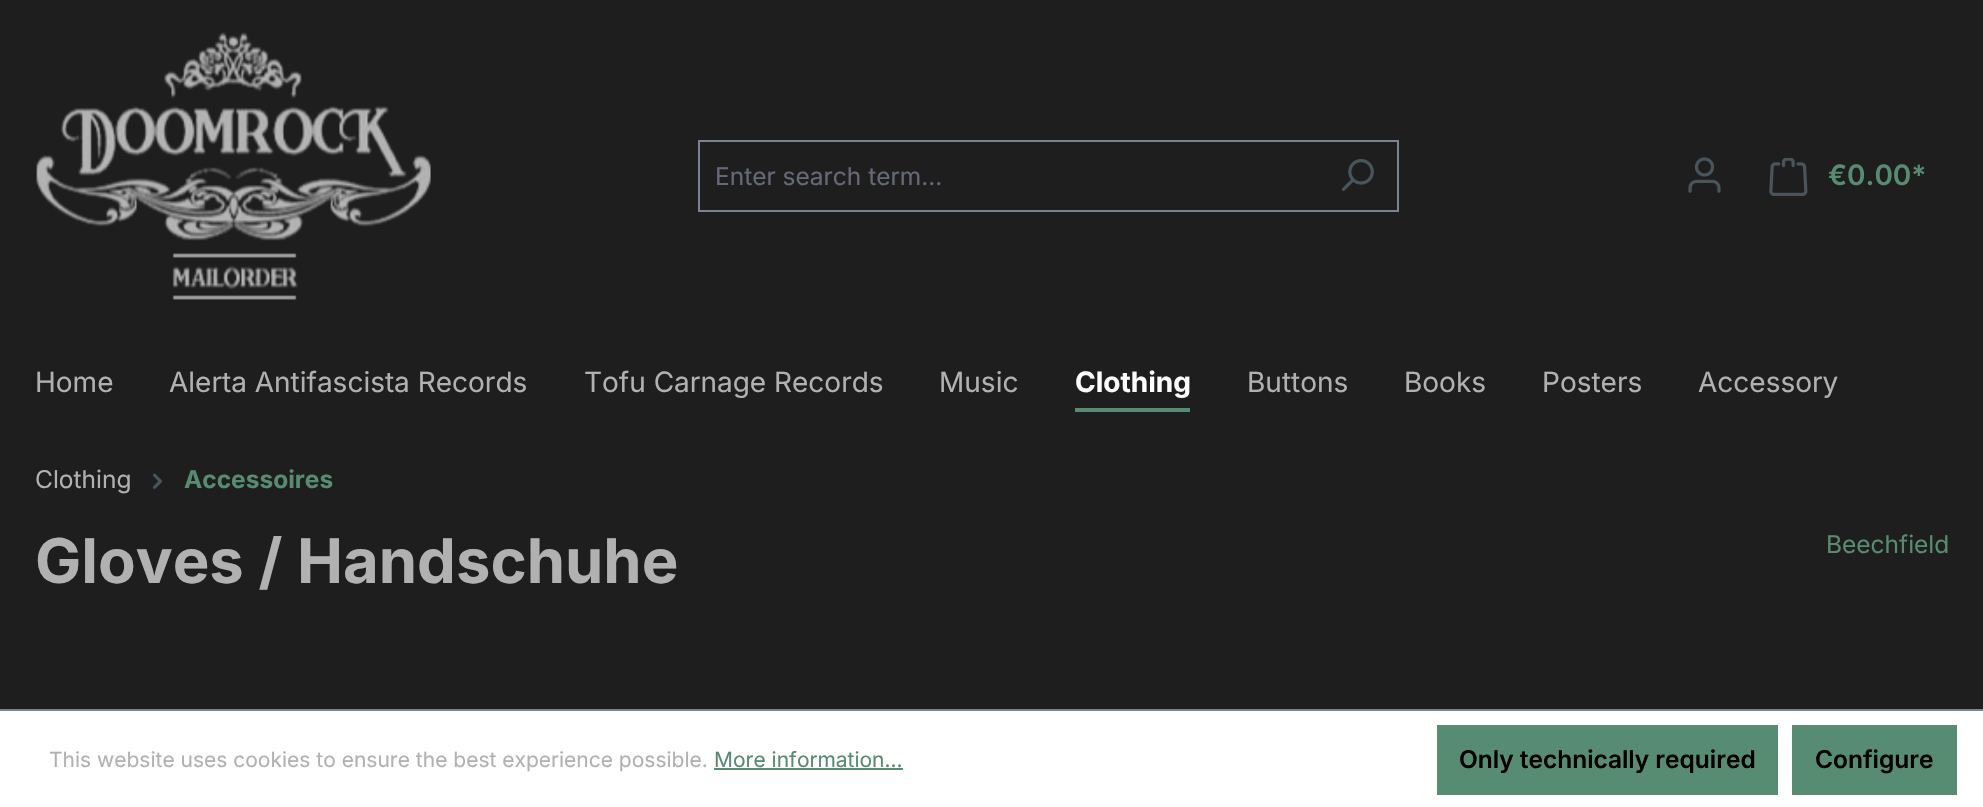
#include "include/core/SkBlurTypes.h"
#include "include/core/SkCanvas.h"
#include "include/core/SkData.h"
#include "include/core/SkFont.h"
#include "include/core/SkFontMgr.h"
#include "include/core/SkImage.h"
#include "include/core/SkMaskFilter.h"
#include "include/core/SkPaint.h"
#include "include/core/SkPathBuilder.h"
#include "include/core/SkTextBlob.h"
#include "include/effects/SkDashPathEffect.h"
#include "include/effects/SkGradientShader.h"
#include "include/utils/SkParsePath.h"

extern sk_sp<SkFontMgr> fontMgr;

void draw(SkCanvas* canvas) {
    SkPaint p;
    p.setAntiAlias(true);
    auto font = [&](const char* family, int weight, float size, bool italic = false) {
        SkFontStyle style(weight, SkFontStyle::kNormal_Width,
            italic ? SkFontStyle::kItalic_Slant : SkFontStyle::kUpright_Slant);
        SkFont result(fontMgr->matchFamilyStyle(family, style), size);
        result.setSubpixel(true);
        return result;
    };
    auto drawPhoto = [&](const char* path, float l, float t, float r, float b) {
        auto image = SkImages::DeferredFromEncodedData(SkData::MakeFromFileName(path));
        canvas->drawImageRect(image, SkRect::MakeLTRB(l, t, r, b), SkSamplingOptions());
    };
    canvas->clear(0xFF1E1E1E);
    drawPhoto("media/1.png", 36, 31, 431, 300);
    {
        const struct { float l, t, r, b; SkColor color; } items[] = {
            {698, 140, 1398, 142, 0xFF798490},
            {698, 210, 1318, 212, 0xFF798490},
            {698, 140, 700, 212, 0xFF798490},
        };
        for (auto [l, t, r, b, color] : items) {
            p.setColor(color);
            canvas->drawRect(SkRect::MakeLTRB(l, t, r, b), p);
        }
    }
    auto font1 = font("Inter", 400, 24.5f);
    p.setColor(0xFF666977);
    canvas->drawString("Enter search term...", 715, 185, font1, p);
    p.setColor(0xFF798490);
    canvas->drawRect(SkRect::MakeLTRB(1397, 140, 1399, 212), p);
    canvas->drawRect(SkRect::MakeLTRB(1316, 210, 1398, 212), p);
    drawPhoto("media/2.png", 1341, 159, 1374, 191);
    drawPhoto("media/3.png", 1688, 157, 1721, 193);
    drawPhoto("media/4.png", 1769, 158, 1808, 196);
    auto font2 = font("Inter", 600, 28);
    p.setColor(0xFF578B72);
    canvas->drawString("€0.00*", 1828, 185, font2, p);
    auto font3 = font("Inter", 400, 28);
    p.setColor(0xFFB1B1B1);
    {
        const struct { const char* s; float x, y; } items[] = {
            {"Home", 35, 392},
            {"Alerta Antifascista Records", 169, 392},
            {"Tofu Carnage Records", 584, 392},
            {"Music", 939, 392},
        };
        for (auto [s, x, y] : items) {
            canvas->drawString(s, x, y, font3, p);
        }
    }
    p.setColor(0xFF578B72);
    canvas->drawRect(SkRect::MakeLTRB(1075, 408, 1190, 412), p);
    auto font4 = font("Inter", 700, 28);
    p.setColor(0xFFFFFFFF);
    canvas->drawString("Clothing", 1075, 392, font4, p);
    p.setColor(0xFFB1B1B1);
    {
        const struct { const char* s; float x, y; } items[] = {
            {"Buttons", 1247, 392},
            {"Books", 1404, 392},
            {"Posters", 1542, 392},
            {"Accessory", 1698, 392},
        };
        for (auto [s, x, y] : items) {
            canvas->drawString(s, x, y, font3, p);
        }
    }
    canvas->drawString("Clothing", 35, 488, font1, p);
    drawPhoto("media/5.png", 153, 473, 162, 489);
    auto font5 = font("Inter", 700, 24.5f);
    p.setColor(0xFF578B72);
    canvas->drawString("Accessoires", 184, 488, font5, p);
    auto font6 = font("Inter", 700, 61.6f);
    p.setColor(0xFFB1B1B1);
    canvas->drawString("Gloves / Handschuhe", 35, 583, font6, p);
    p.setColor(0xFF578B72);
    canvas->drawString("Beechfield", 1826, 553, font1, p);
    p.setColor(0xFFFFFFFF);
    canvas->drawRect(SkRect::MakeLTRB(0, 711, 1983, 807), p);
    p.setColor(0xFF798490);
    canvas->drawRect(SkRect::MakeLTRB(0, 709, 1983, 711), p);
    auto font7 = font("Inter", 400, 21);
    p.setColor(0xFFB1B1B1);
    canvas->drawString("This website uses cookies to ensure the best experience possible.", 49, 767, font7, p);
    p.setColor(0xFF578B72);
    canvas->drawString("More information...", 714, 767, font7, p);
    canvas->drawRect(SkRect::MakeLTRB(714, 768, 903, 770), p);
    canvas->drawRect(SkRect::MakeLTRB(1437, 725, 1778, 795), p);
    auto font8 = font("Inter", 600, 24.5f);
    p.setColor(0xFF000000);
    canvas->drawString("Only technically required", 1459, 768, font8, p);
    p.setColor(0xFF578B72);
    canvas->drawRect(SkRect::MakeLTRB(1792, 725, 1957, 795), p);
    p.setColor(0xFF000000);
    canvas->drawString("Configure", 1815, 768, font8, p);
}
